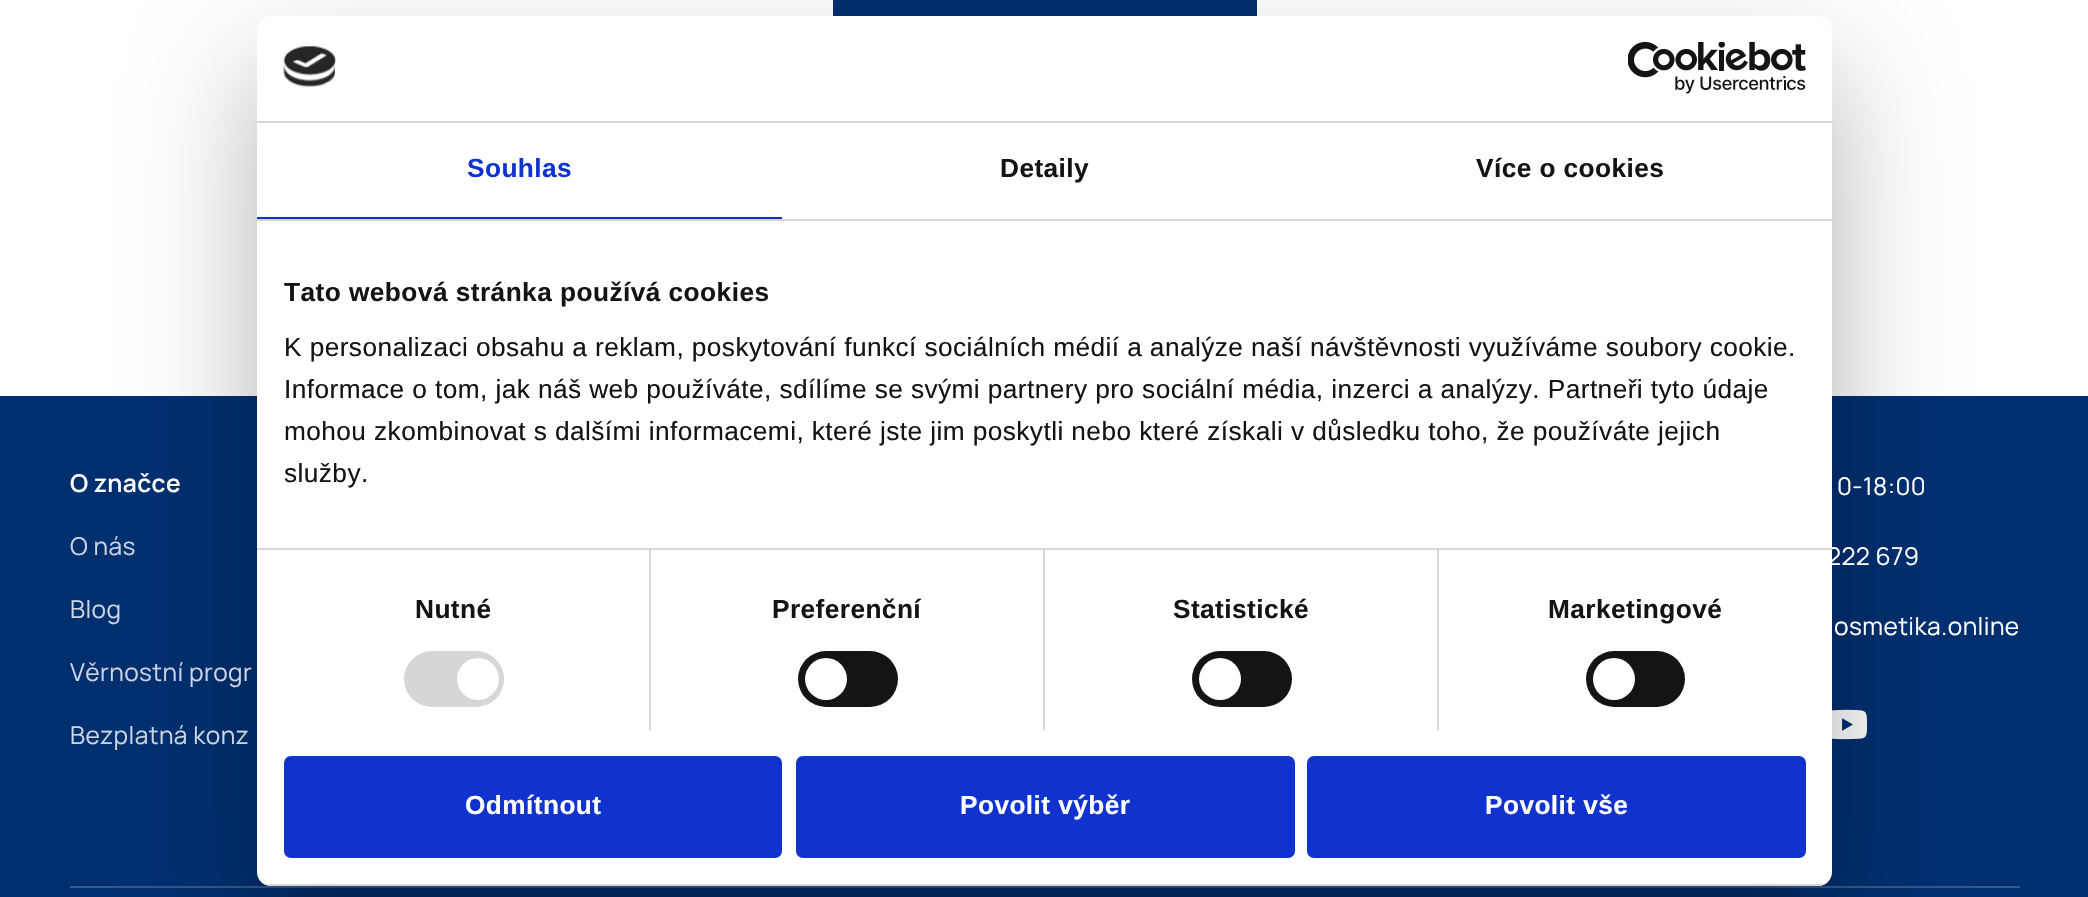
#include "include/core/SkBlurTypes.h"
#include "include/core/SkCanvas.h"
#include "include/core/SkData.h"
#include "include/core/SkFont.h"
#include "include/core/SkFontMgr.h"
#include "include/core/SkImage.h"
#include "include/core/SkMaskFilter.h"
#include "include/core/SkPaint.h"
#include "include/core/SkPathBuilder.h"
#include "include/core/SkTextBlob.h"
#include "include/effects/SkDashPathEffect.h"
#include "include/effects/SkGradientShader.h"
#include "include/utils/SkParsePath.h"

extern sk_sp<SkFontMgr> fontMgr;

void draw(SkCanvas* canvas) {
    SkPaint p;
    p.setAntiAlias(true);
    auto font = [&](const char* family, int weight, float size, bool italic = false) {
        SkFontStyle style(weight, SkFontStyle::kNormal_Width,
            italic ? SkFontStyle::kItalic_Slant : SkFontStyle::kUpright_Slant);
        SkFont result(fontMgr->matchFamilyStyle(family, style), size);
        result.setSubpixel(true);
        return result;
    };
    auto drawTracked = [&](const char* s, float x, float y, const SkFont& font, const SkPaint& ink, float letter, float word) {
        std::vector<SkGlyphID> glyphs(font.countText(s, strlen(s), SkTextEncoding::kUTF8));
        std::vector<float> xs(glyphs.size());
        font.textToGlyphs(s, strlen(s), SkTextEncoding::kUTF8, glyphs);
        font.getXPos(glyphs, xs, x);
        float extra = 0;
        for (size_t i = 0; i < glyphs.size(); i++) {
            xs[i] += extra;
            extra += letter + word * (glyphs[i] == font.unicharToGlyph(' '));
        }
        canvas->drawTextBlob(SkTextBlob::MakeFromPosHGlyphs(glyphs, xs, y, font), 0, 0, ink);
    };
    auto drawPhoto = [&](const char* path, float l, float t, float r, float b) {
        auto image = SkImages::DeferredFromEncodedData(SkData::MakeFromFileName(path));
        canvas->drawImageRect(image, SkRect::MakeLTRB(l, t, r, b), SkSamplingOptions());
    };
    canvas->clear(0xFFFFFFFF);
    p.setColor(0xFF002F70);
    canvas->drawRect(SkRect::MakeLTRB(833, 0, 1257, 16), p);
    canvas->drawRect(SkRect::MakeLTRB(0, 396, 2088, 897), p);
    drawPhoto("media/3.png", 1832, 709, 1867, 740);
    p.setColor(0xFF33598D);
    canvas->drawRect(SkRect::MakeLTRB(70, 886, 2020, 888), p);
    p.setColor(0x4D000000);
    p.setMaskFilter(SkMaskFilter::MakeBlur(kNormal_SkBlurStyle, 59.5f));
    canvas->drawRoundRect(SkRect::MakeLTRB(257, 72, 1832, 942), 14, 14, p);
    p.setMaskFilter(nullptr);
    p.setColor(0xFFFFFFFF);
    canvas->drawRoundRect(SkRect::MakeLTRB(257, 16, 1832, 886), 14, 14, p);
    p.setColor(0xFFD6D6D6);
    canvas->drawRect(SkRect::MakeLTRB(257, 121, 1832, 123), p);
    drawPhoto("media/1.png", 283, 46, 336, 87);
    drawPhoto("media/2.png", 1628, 42, 1806, 94);
    canvas->drawRect(SkRect::MakeLTRB(257, 219, 1832, 221), p);
    p.setColor(0xFF1032CF);
    canvas->drawRect(SkRect::MakeLTRB(257, 217, 782, 219), p);
    auto font1 = font("Liberation Sans", 700, 26.25f);
    drawTracked("Souhlas", 467, 177, font1, p, 0.42f, 0);
    p.setColor(0xFF141414);
    drawTracked("Detaily", 1000, 177, font1, p, 0.42f, 0);
    drawTracked("Více o cookies", 1476, 177, font1, p, 0.42f, 0);
    auto font2 = font("Manrope", 400, 24.5f);
    p.setColor(0xFFFFFFFF);
    drawTracked("222 679", 1827, 565, font2, p, 0.42f, 0);
    p.setColor(0xFFD6D6D6);
    canvas->drawRect(SkRect::MakeLTRB(257, 548, 1832, 550), p);
    p.setColor(0xFF141414);
    drawTracked("Tato webová stránka používá cookies", 284, 301, font1, p, 0.45f, 0);
    auto font3 = font("Liberation Sans", 400, 26.25f);
    {
        const struct { const char* s; float x, y; } items[] = {
            {"K personalizaci obsahu a reklam, poskytování funkcí sociálních médií a analýze naší návštěvnosti využíváme soubory cookie.", 284, 356},
            {"Informace o tom, jak náš web používáte, sdílíme se svými partnery pro sociální média, inzerci a analýzy. Partneři tyto údaje", 284, 398},
            {"mohou zkombinovat s dalšími informacemi, které jste jim poskytli nebo které získali v důsledku toho, že používáte jejich", 284, 440},
            {"služby.", 284, 482},
        };
        for (auto [s, x, y] : items) {
            drawTracked(s, x, y, font3, p, 0.42f, 0);
        }
    }
    p.setColor(0xFFD6D6D6);
    canvas->drawRect(SkRect::MakeLTRB(649, 550, 651, 730), p);
    p.setColor(0xFF141414);
    drawTracked("Nutné", 415, 618, font1, p, 0.42f, 0);
    p.setColor(0xFFD6D6D6);
    canvas->drawRoundRect(SkRect::MakeLTRB(404, 651, 504, 707), 28, 28, p);
    p.setColor(0xFFFFFFFF);
    canvas->drawCircle(478, 679, 21, p);
    p.setColor(0xFFD6D6D6);
    canvas->drawRect(SkRect::MakeLTRB(1043, 550, 1045, 730), p);
    p.setColor(0xFF141414);
    drawTracked("Preferenční", 772, 618, font1, p, 0.42f, 0);
    canvas->drawRoundRect(SkRect::MakeLTRB(798, 651, 898, 707), 28, 28, p);
    p.setColor(0xFFFFFFFF);
    canvas->drawCircle(826, 679, 21, p);
    p.setColor(0xFFD6D6D6);
    canvas->drawRect(SkRect::MakeLTRB(1437, 550, 1439, 730), p);
    p.setColor(0xFF141414);
    drawTracked("Statistické", 1173, 618, font1, p, 0.42f, 0);
    canvas->drawRoundRect(SkRect::MakeLTRB(1192, 651, 1292, 707), 28, 28, p);
    p.setColor(0xFFFFFFFF);
    canvas->drawCircle(1220, 679, 21, p);
    p.setColor(0xFF141414);
    drawTracked("Marketingové", 1548, 618, font1, p, 0.42f, 0);
    canvas->drawRoundRect(SkRect::MakeLTRB(1586, 651, 1685, 707), 28, 28, p);
    p.setColor(0xFFFFFFFF);
    canvas->drawCircle(1614, 679, 21, p);
    canvas->save();
    canvas->clipPath(SkPathBuilder().moveTo(271, 16).lineTo(1818, 16).cubicTo(1825.5f, 16, 1832, 22.5f, 1832, 30).lineTo(1832, 872).cubicTo(1832, 879.5f, 1825.5f, 886, 1818, 886).lineTo(271, 886).cubicTo(263.5f, 886, 257, 879.5f, 257, 872).lineTo(257, 30).cubicTo(257, 22.5f, 263.5f, 16, 271, 16).close().detach(), true);
    p.setColor(0xFFD6D6D6);
    canvas->drawRect(SkRect::MakeLTRB(257, 884, 1832, 886), p);
    canvas->restore();
    p.setColor(0xFF1032CF);
    canvas->drawRoundRect(SkRect::MakeLTRB(286, 758, 780, 856), 5, 5, p);
    p.setStyle(SkPaint::kStroke_Style);
    p.setStrokeWidth(4);
    canvas->drawRoundRect(SkRect::MakeLTRB(286, 758, 780, 856), 5, 5, p);
    p.setStyle(SkPaint::kFill_Style);
    p.setColor(0xFFFFFFFF);
    drawTracked("Odmítnout", 465, 814, font1, p, 0.42f, 0);
    p.setColor(0xFF1032CF);
    canvas->drawRoundRect(SkRect::MakeLTRB(798, 758, 1293, 856), 5, 5, p);
    p.setStyle(SkPaint::kStroke_Style);
    canvas->drawRoundRect(SkRect::MakeLTRB(798, 758, 1293, 856), 5, 5, p);
    p.setStyle(SkPaint::kFill_Style);
    p.setColor(0xFFFFFFFF);
    drawTracked("Povolit výběr", 960, 814, font1, p, 0.42f, 0);
    p.setColor(0xFF1032CF);
    canvas->drawRoundRect(SkRect::MakeLTRB(1309, 758, 1804, 856), 5, 5, p);
    p.setStyle(SkPaint::kStroke_Style);
    canvas->drawRoundRect(SkRect::MakeLTRB(1309, 758, 1804, 856), 5, 5, p);
    p.setStyle(SkPaint::kFill_Style);
    p.setColor(0xFFFFFFFF);
    drawTracked("Povolit vše", 1485, 814, font1, p, 0.42f, 0);
    auto font4 = font("Manrope", 600, 24.5f);
    drawTracked("O značce", 70, 492, font4, p, 0.42f, 0);
    p.setColor(0xFFCCD5E2);
    {
        const struct { const char* s; float x, y; } items[] = {
            {"O nás", 70, 555},
            {"Blog", 70, 618},
            {"Věrnostní progr", 70, 681},
            {"Bezplatná konz", 70, 744},
        };
        for (auto [s, x, y] : items) {
            drawTracked(s, x, y, font2, p, 0.42f, 0);
        }
    }
    p.setColor(0xFFFFFFFF);
    drawTracked("0-18:00", 1837, 495, font2, p, 0.42f, 0);
    drawTracked("osmetika.online", 1834, 635, font2, p, 0.42f, 0);
}
